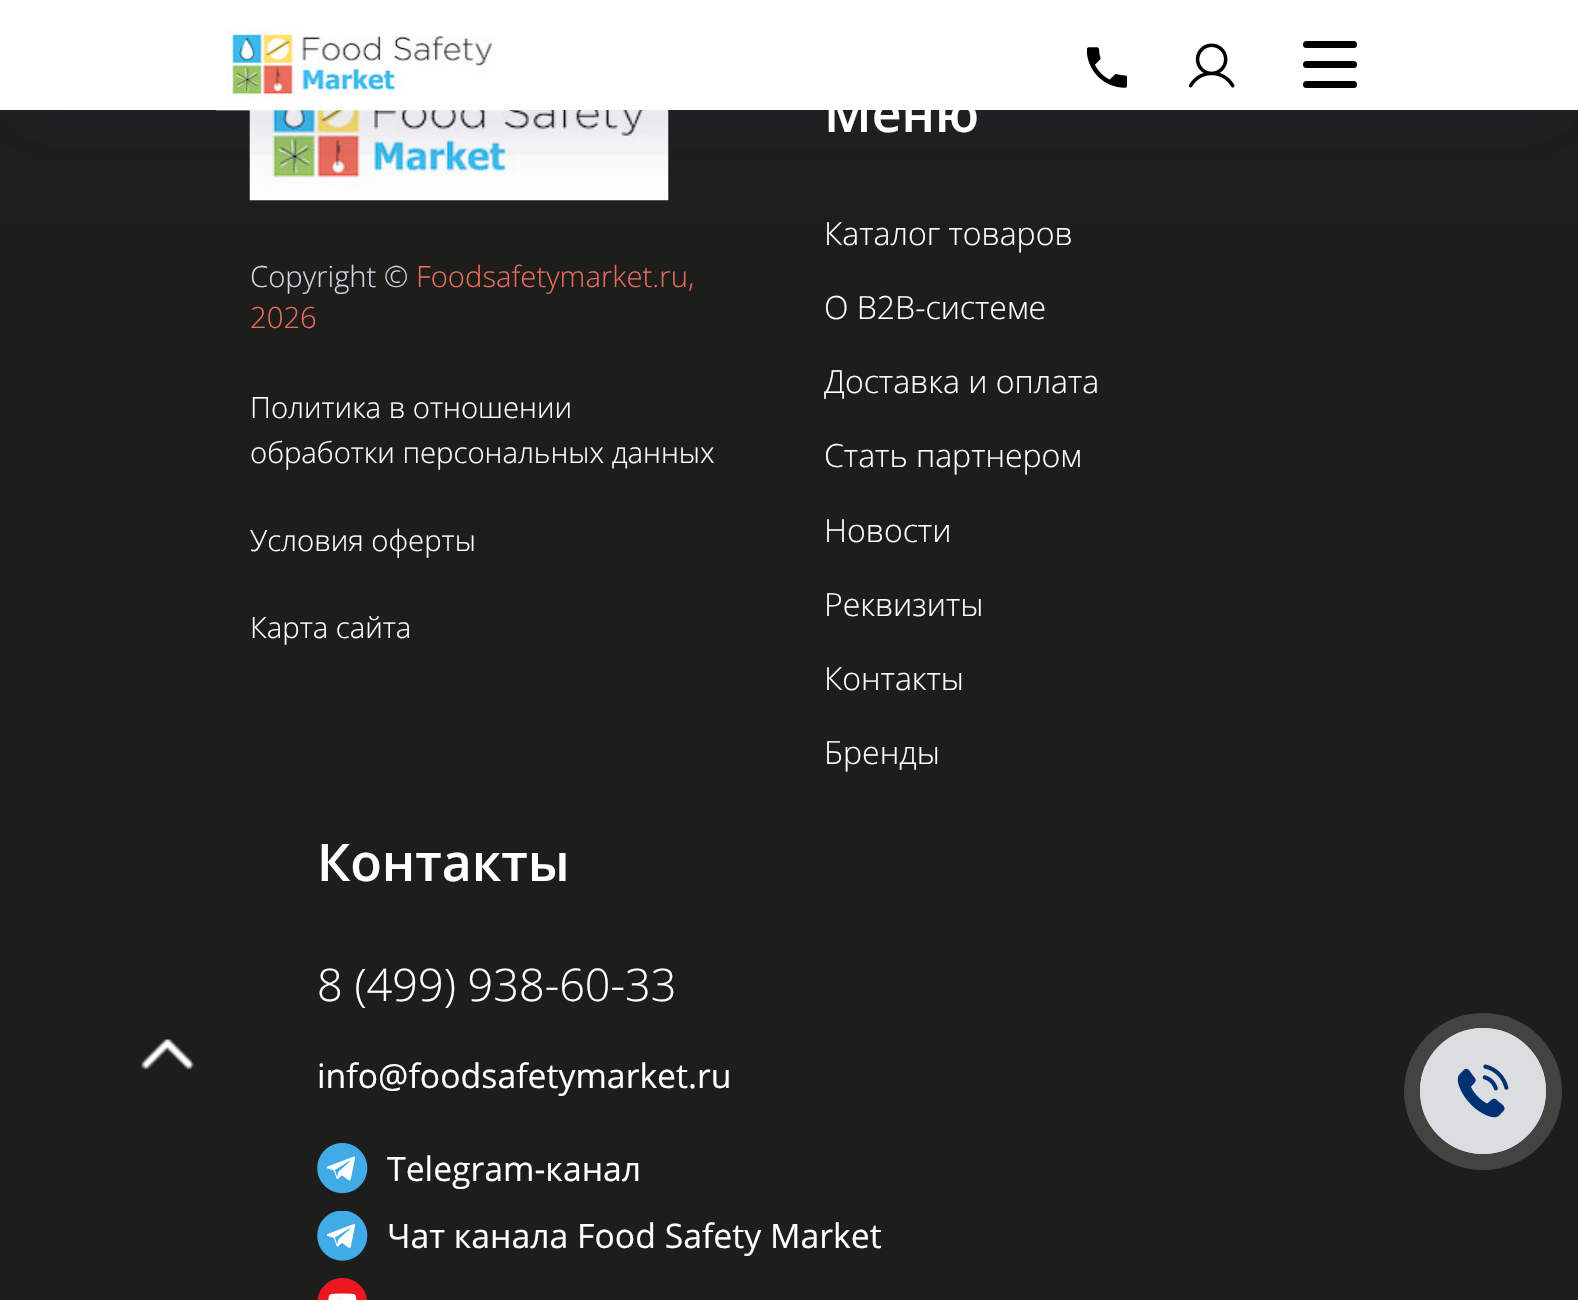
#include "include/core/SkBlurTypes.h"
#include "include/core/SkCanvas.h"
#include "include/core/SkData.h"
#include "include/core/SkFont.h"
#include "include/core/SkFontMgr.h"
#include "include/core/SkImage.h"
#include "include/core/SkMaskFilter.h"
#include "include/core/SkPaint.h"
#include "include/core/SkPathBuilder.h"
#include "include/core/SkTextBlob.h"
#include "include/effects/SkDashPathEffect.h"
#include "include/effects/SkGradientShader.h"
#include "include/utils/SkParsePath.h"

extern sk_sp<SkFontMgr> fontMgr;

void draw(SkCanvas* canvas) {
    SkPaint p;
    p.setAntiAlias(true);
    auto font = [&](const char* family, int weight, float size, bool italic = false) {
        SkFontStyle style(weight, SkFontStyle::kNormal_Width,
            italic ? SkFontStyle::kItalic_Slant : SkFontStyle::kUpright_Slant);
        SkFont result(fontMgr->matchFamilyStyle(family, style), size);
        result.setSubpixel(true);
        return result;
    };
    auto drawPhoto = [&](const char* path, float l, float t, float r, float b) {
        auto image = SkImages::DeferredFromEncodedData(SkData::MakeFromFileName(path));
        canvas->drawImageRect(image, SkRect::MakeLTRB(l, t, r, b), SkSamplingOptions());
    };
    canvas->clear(0xFF1D1D1B);
    drawPhoto("media/5.png", 249, 110, 669, 201);
    p.setColor(0x12292653);
    p.setMaskFilter(SkMaskFilter::MakeBlur(kNormal_SkBlurStyle, 39.5f));
    canvas->drawRect(SkRect::MakeLTRB(0, 23, 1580, 133), p);
    p.setMaskFilter(nullptr);
    p.setColor(0xFFFFFFFF);
    canvas->drawRect(SkRect::MakeLTRB(0, 0, 1578, 110), p);
    canvas->save();
    canvas->clipRect(SkRect::MakeLTRB(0, 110, 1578, 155));
    p.setColor(0x12292653);
    p.setMaskFilter(SkMaskFilter::MakeBlur(kNormal_SkBlurStyle, 39.5f));
    canvas->drawRect(SkRect::MakeLTRB(0, 23, 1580, 133), p);
    p.setMaskFilter(nullptr);
    canvas->restore();
    drawPhoto("media/1.png", 216, 28, 509, 111);
    drawPhoto("media/2.png", 1087, 47, 1127, 88);
    drawPhoto("media/3.png", 1188, 43, 1235, 88);
    p.setColor(0xFF000000);
    canvas->drawRoundRect(SkRect::MakeLTRB(1303, 41, 1357, 48), 3.5f, 3.5f, p);
    canvas->drawRoundRect(SkRect::MakeLTRB(1303, 61, 1357, 68), 3.5f, 3.5f, p);
    canvas->drawRoundRect(SkRect::MakeLTRB(1303, 81, 1357, 88), 3.5f, 3.5f, p);
    drawPhoto("media/4.png", 141, 1039, 194, 1070);
    auto font1 = font("Open Sans", 300, 29.25f);
    p.setColor(0xFFD2D6E0);
    canvas->drawString("Copyright ©", 250, 287, font1, p);
    p.setColor(0xFFED6B5C);
    canvas->drawString("Foodsafetymarket.ru,", 416, 287, font1, p);
    canvas->drawString("2026", 250, 328, font1, p);
    p.setColor(0xFFFFFFFF);
    {
        const struct { const char* s; float x, y; } items[] = {
            {"Политика в отношении", 250, 418},
            {"обработки персональных данных", 250, 463},
            {"Условия оферты", 250, 551},
            {"Карта сайта", 250, 638},
        };
        for (auto [s, x, y] : items) {
            canvas->drawString(s, x, y, font1, p);
        }
    }
    auto font2 = font("Open Sans", 600, 51.75f);
    canvas->drawString("Меню", 824, 132, font2, p);
    auto font3 = font("Open Sans", 300, 32);
    {
        const struct { const char* s; float x, y; } items[] = {
            {"Каталог товаров", 824, 245},
            {"О B2B-системе", 824, 319},
            {"Доставка и оплата", 824, 393},
            {"Стать партнером", 824, 467},
            {"Новости", 824, 542},
            {"Реквизиты", 824, 616},
            {"Контакты", 824, 690},
            {"Бренды", 824, 764},
        };
        for (auto [s, x, y] : items) {
            canvas->drawString(s, x, y, font3, p);
        }
    }
    canvas->drawString("Контакты", 317, 881, font2, p);
    auto font4 = font("Open Sans", 300, 45);
    canvas->drawString("8 (499) 938-60-33", 317, 1001, font4, p);
    auto font5 = font("Open Sans", 400, 33.75f);
    canvas->drawString("info@foodsafetymarket.ru", 317, 1088, font5, p);
    drawPhoto("media/6.png", 317, 1143, 368, 1194);
    canvas->drawString("Telegram-канал", 387, 1181, font5, p);
    drawPhoto("media/7.png", 317, 1211, 368, 1261);
    canvas->drawString("Чат канала Food Safety Market", 387, 1248, font5, p);
    drawPhoto("media/8.png", 317, 1278, 368, 1300);
    p.setColor(0xFF434342);
    canvas->drawRoundRect(SkRect::MakeLTRB(1404, 1013, 1562, 1170), 78.5f, 78.5f, p);
    p.setStyle(SkPaint::kStroke_Style);
    p.setStrokeWidth(2);
    p.setColor(0xFFDBDDE0);
    canvas->drawCircle(1483, 1091, 62, p);
    p.setStyle(SkPaint::kFill_Style);
    canvas->drawCircle(1483, 1091, 63, p);
    drawPhoto("media/9.png", 1457, 1064, 1509, 1118);
}
